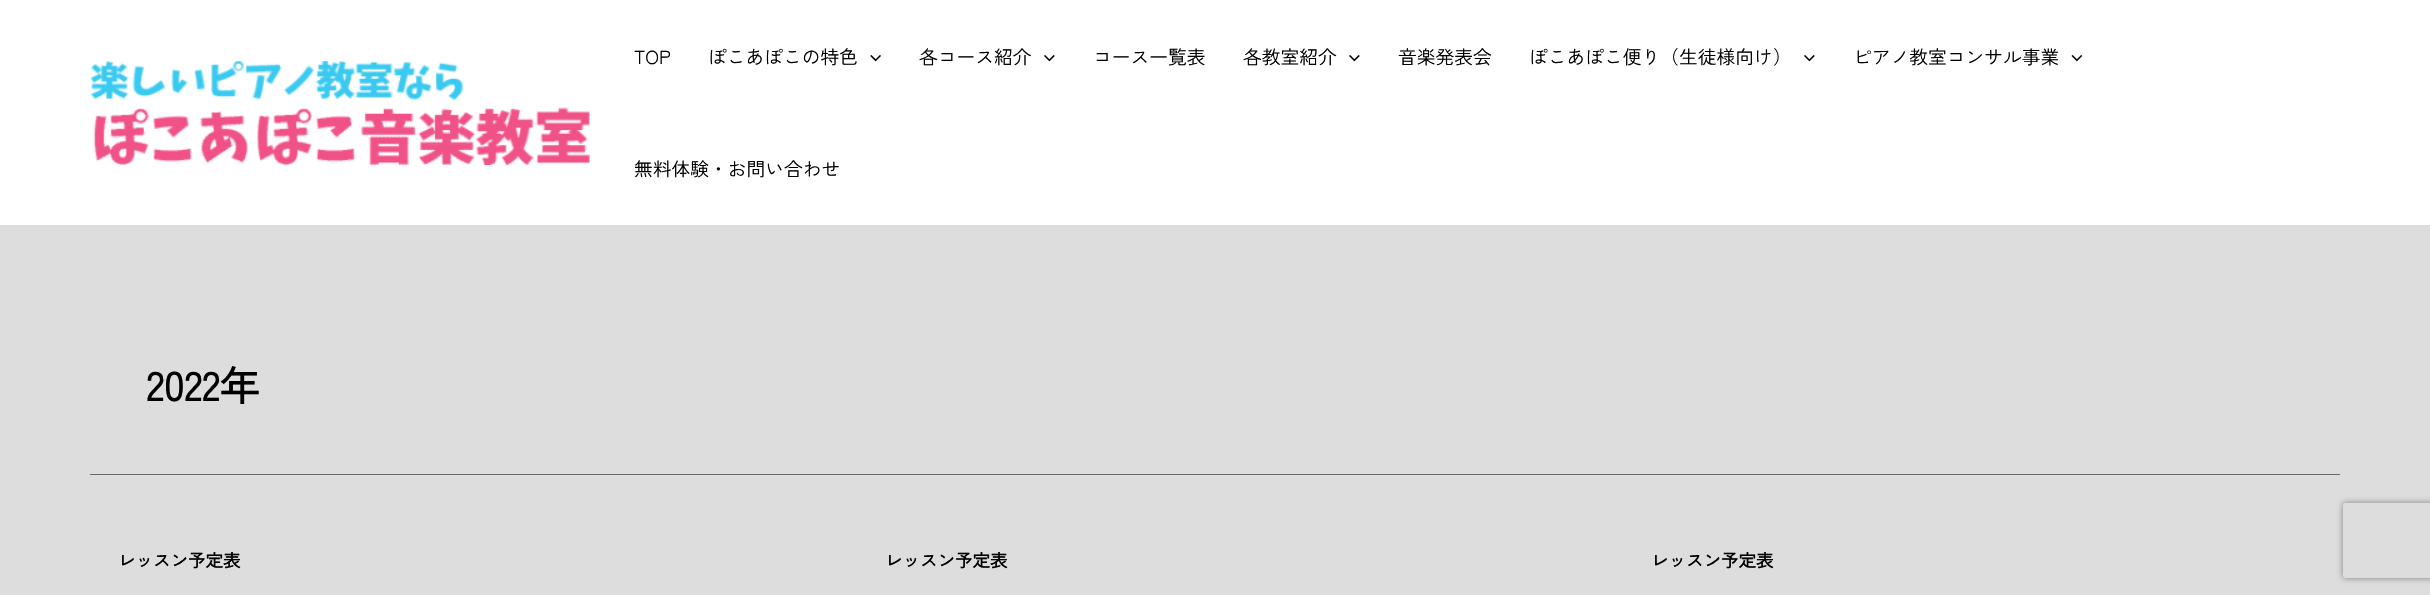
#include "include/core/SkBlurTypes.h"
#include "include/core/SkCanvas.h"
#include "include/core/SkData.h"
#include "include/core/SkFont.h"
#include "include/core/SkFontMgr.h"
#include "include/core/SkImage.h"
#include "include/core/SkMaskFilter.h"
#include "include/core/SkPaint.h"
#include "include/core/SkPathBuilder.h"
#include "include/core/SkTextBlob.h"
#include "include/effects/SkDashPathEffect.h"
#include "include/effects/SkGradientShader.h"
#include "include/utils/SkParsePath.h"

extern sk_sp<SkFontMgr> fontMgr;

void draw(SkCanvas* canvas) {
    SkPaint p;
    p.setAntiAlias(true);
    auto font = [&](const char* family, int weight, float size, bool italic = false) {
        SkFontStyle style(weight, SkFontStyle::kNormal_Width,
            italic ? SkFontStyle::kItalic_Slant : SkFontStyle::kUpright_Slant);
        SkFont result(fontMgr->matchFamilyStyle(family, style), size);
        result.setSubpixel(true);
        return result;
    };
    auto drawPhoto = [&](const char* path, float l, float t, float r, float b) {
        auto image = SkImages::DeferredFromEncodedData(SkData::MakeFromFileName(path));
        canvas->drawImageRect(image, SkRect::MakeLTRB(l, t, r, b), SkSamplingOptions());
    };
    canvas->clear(0xFFDDDDDD);
    p.setColor(0xFFFFFFFF);
    canvas->drawRect(SkRect::MakeLTRB(0, 0, 2430, 225), p);
    drawPhoto("media/1.png", 90, 61, 590, 165);
    auto font1 = font("Zen Kaku Gothic New", 400, 18.75f);
    p.setColor(0xFF000000);
    canvas->drawString("TOP", 634, 64, font1, p);
    canvas->drawString("ぽこあぽこの特色", 708, 64, font1, p);
    drawPhoto("media/2.png", 870, 55, 881, 62);
    canvas->drawString("各コース紹介", 919, 64, font1, p);
    drawPhoto("media/3.png", 1044, 55, 1055, 62);
    canvas->drawString("コース一覧表", 1093, 64, font1, p);
    canvas->drawString("各教室紹介", 1243, 64, font1, p);
    drawPhoto("media/3.png", 1349, 55, 1360, 62);
    canvas->drawString("音楽発表会", 1398, 64, font1, p);
    canvas->drawString("ぽこあぽこ便り（生徒様向け）", 1529, 64, font1, p);
    drawPhoto("media/3.png", 1804, 55, 1815, 62);
    canvas->drawString("ピアノ教室コンサル事業", 1853, 64, font1, p);
    drawPhoto("media/4.png", 2071, 55, 2083, 62);
    canvas->drawString("無料体験・お問い合わせ", 634, 176, font1, p);
    p.setColor(0xFF6A6A6A);
    canvas->drawRect(SkRect::MakeLTRB(90, 474, 2340, 475), p);
    auto font2 = font("Zen Kaku Gothic New", 700, 40);
    p.setColor(0xFF000000);
    canvas->drawString("2022年", 146, 401, font2, p);
    auto font3 = font("Zen Kaku Gothic New", 700, 17.5f);
    {
        const struct { const char* s; float x, y; } items[] = {
            {"レッスン予定表", 118, 567},
            {"レッスン予定表", 885, 567},
            {"レッスン予定表", 1651, 567},
        };
        for (auto [s, x, y] : items) {
            canvas->drawString(s, x, y, font3, p);
        }
    }
    canvas->save();
    canvas->clipPath(SkPathBuilder(SkPathFillType::kEvenOdd).moveTo(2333, 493).lineTo(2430, 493).lineTo(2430, 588).lineTo(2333, 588).close().moveTo(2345.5f, 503).lineTo(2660.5f, 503).cubicTo(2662, 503, 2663, 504, 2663, 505.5f).lineTo(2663, 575.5f).cubicTo(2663, 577, 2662, 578, 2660.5f, 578).lineTo(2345.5f, 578).cubicTo(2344, 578, 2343, 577, 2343, 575.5f).lineTo(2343, 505.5f).cubicTo(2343, 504, 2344, 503, 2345.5f, 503).close().detach(), true);
    p.setColor(0xFF808080);
    p.setMaskFilter(SkMaskFilter::MakeBlur(kNormal_SkBlurStyle, 3));
    canvas->drawRoundRect(SkRect::MakeLTRB(2343, 503, 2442, 578), 2.5f, 2.5f, p);
    p.setMaskFilter(nullptr);
    canvas->restore();
}
